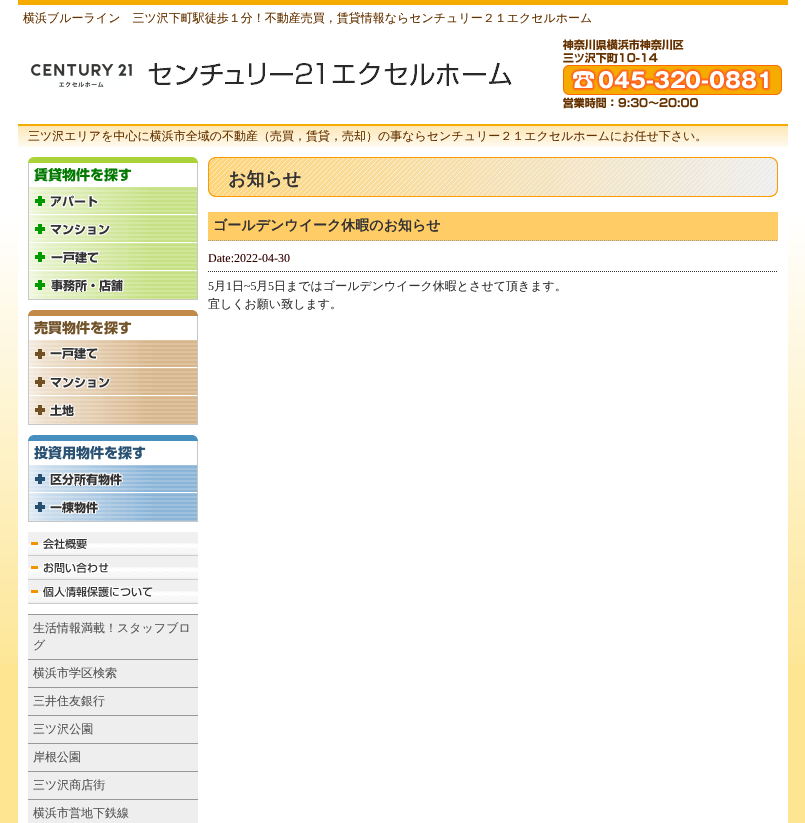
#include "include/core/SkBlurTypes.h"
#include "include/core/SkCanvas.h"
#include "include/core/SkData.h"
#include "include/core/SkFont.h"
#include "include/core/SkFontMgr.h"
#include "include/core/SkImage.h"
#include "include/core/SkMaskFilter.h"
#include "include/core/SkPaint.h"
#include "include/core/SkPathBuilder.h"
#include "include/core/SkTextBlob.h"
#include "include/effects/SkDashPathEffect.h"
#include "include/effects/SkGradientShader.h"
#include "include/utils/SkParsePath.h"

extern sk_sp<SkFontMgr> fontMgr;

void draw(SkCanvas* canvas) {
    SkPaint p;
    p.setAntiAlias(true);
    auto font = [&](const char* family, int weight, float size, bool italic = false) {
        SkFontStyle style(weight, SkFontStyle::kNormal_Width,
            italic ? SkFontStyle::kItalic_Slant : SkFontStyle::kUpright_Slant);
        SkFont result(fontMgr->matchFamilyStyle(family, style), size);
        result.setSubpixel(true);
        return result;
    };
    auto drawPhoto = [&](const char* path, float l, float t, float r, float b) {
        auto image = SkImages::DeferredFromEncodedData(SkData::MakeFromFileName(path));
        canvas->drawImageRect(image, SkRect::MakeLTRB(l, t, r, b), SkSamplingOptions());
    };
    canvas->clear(0xFFFDE592);
    drawPhoto("media/1.png", 0, 0, 805, 664);
    p.setColor(0xFFFFFFFF);
    canvas->drawRect(SkRect::MakeLTRB(18, 224, 788, 823), p);
    p.setColor(0xFFF6AB00);
    canvas->drawRect(SkRect::MakeLTRB(18, 0, 788, 5), p);
    auto font1 = font("WenQuanYi Zen Hei", 500, 12);
    p.setColor(0xFF663300);
    canvas->drawString("横浜ブルーライン　三ツ沢下町駅徒歩１分！不動産売買，賃貸情報ならセンチュリー２１エクセルホーム", 23, 22, font1, p);
    drawPhoto("media/2.png", 31, 64, 132, 88);
    drawPhoto("media/3.png", 148, 62, 512, 86);
    drawPhoto("media/4.png", 563, 39, 782, 109);
    drawPhoto("media/5.png", 18, 126, 788, 147);
    p.setColor(0xFFF6AB00);
    canvas->drawRect(SkRect::MakeLTRB(18, 124, 788, 126), p);
    p.setColor(0xFF663300);
    canvas->drawString("三ツ沢エリアを中心に横浜市全域の不動産（売買，賃貸，売却）の事ならセンチュリー２１エクセルホームにお任せ下さい。", 28, 140, font1, p);
    drawPhoto("media/6.png", 208, 157, 778, 197);
    auto font2 = font("WenQuanYi Zen Hei", 700, 18);
    p.setColor(0xFF333333);
    canvas->drawString("お知らせ", 228, 185, font2, p);
    p.setColor(0xFFFFCC66);
    canvas->drawRect(SkRect::MakeLTRB(208, 212, 778, 241), p);
    p.setStyle(SkPaint::kStroke_Style);
    p.setStrokeWidth(1);
    p.setColor(0xFF999999);
    p.setPathEffect(SkDashPathEffect::Make({{1, 1}}, 0));
    canvas->drawPath(SkPathBuilder().moveTo(208, 240.5f).lineTo(778, 240.5f).detach(), p);
    p.setPathEffect(nullptr);
    auto font3 = font("WenQuanYi Zen Hei", 700, 14);
    p.setStyle(SkPaint::kFill_Style);
    p.setColor(0xFF333333);
    canvas->drawString("ゴールデンウイーク休暇のお知らせ", 213, 230, font3, p);
    p.setStyle(SkPaint::kStroke_Style);
    p.setPathEffect(SkDashPathEffect::Make({{1, 1}}, 0));
    canvas->drawPath(SkPathBuilder().moveTo(208, 271.5f).lineTo(778, 271.5f).detach(), p);
    p.setPathEffect(nullptr);
    auto font4 = font("Liberation Serif", 400, 12);
    p.setStyle(SkPaint::kFill_Style);
    p.setColor(0xFF330000);
    canvas->drawString("Date:2022-04-30", 208, 262, font4, p);
    p.setColor(0xFF333333);
    canvas->drawString("5", 208, 290, font4, p);
    canvas->drawString("月", 214, 290, font1, p);
    canvas->drawString("1", 226, 290, font4, p);
    canvas->drawString("日", 232, 290, font1, p);
    canvas->drawString("~5", 244, 290, font4, p);
    canvas->drawString("月", 256, 290, font1, p);
    canvas->drawString("5", 268, 290, font4, p);
    canvas->drawString("日まではゴールデンウイーク休暇とさせて頂きます。", 274, 290, font1, p);
    canvas->drawString("宜しくお願い致します。", 208, 308, font1, p);
    p.setColor(0xFFC7C7C7);
    canvas->drawRect(SkRect::MakeLTRB(28, 299, 198, 300), p);
    drawPhoto("media/7.png", 28, 157, 198, 187);
    drawPhoto("media/8.png", 28, 187, 198, 215);
    drawPhoto("media/9.png", 28, 215, 198, 243);
    drawPhoto("media/10.png", 28, 243, 198, 271);
    drawPhoto("media/11.png", 28, 271, 198, 299);
    canvas->drawRect(SkRect::MakeLTRB(28, 424, 198, 425), p);
    drawPhoto("media/12.png", 28, 310, 198, 340);
    drawPhoto("media/13.png", 28, 340, 198, 368);
    drawPhoto("media/14.png", 28, 368, 198, 396);
    drawPhoto("media/15.png", 28, 396, 198, 424);
    canvas->drawRect(SkRect::MakeLTRB(28, 521, 198, 522), p);
    drawPhoto("media/16.png", 28, 435, 198, 465);
    drawPhoto("media/17.png", 28, 465, 198, 493);
    drawPhoto("media/18.png", 28, 493, 198, 521);
    drawPhoto("media/19.png", 28, 532, 198, 556);
    drawPhoto("media/20.png", 28, 556, 198, 580);
    drawPhoto("media/21.png", 28, 580, 198, 604);
    {
        const struct { float l, t, r, b; SkColor color; } items[] = {
            {28, 614, 198, 615, 0xFF999999},
            {28, 615, 198, 659, 0xFFEEEEEE},
            {28, 659, 198, 660, 0xFF999999},
        };
        for (auto [l, t, r, b, color] : items) {
            p.setColor(color);
            canvas->drawRect(SkRect::MakeLTRB(l, t, r, b), p);
        }
    }
    p.setColor(0xFF555555);
    canvas->drawString("生活情報満載！スタッフブロ", 33, 632, font1, p);
    canvas->drawString("グ", 33, 649, font1, p);
    p.setColor(0xFFEEEEEE);
    canvas->drawRect(SkRect::MakeLTRB(28, 660, 198, 687), p);
    p.setColor(0xFF999999);
    canvas->drawRect(SkRect::MakeLTRB(28, 687, 198, 688), p);
    p.setColor(0xFF555555);
    canvas->drawString("横浜市学区検索", 33, 677, font1, p);
    p.setColor(0xFFEEEEEE);
    canvas->drawRect(SkRect::MakeLTRB(28, 688, 198, 715), p);
    p.setColor(0xFF999999);
    canvas->drawRect(SkRect::MakeLTRB(28, 715, 198, 716), p);
    p.setColor(0xFF555555);
    canvas->drawString("三井住友銀行", 33, 705, font1, p);
    p.setColor(0xFFEEEEEE);
    canvas->drawRect(SkRect::MakeLTRB(28, 716, 198, 743), p);
    p.setColor(0xFF999999);
    canvas->drawRect(SkRect::MakeLTRB(28, 743, 198, 744), p);
    p.setColor(0xFF555555);
    canvas->drawString("三ツ沢公園", 33, 733, font1, p);
    p.setColor(0xFFEEEEEE);
    canvas->drawRect(SkRect::MakeLTRB(28, 744, 198, 771), p);
    p.setColor(0xFF999999);
    canvas->drawRect(SkRect::MakeLTRB(28, 771, 198, 772), p);
    p.setColor(0xFF555555);
    canvas->drawString("岸根公園", 33, 761, font1, p);
    p.setColor(0xFFEEEEEE);
    canvas->drawRect(SkRect::MakeLTRB(28, 772, 198, 799), p);
    p.setColor(0xFF999999);
    canvas->drawRect(SkRect::MakeLTRB(28, 799, 198, 800), p);
    p.setColor(0xFF555555);
    canvas->drawString("三ツ沢商店街", 33, 789, font1, p);
    p.setColor(0xFFEEEEEE);
    canvas->drawRect(SkRect::MakeLTRB(28, 800, 198, 823), p);
    p.setColor(0xFF555555);
    canvas->drawString("横浜市営地下鉄線", 33, 817, font1, p);
}
